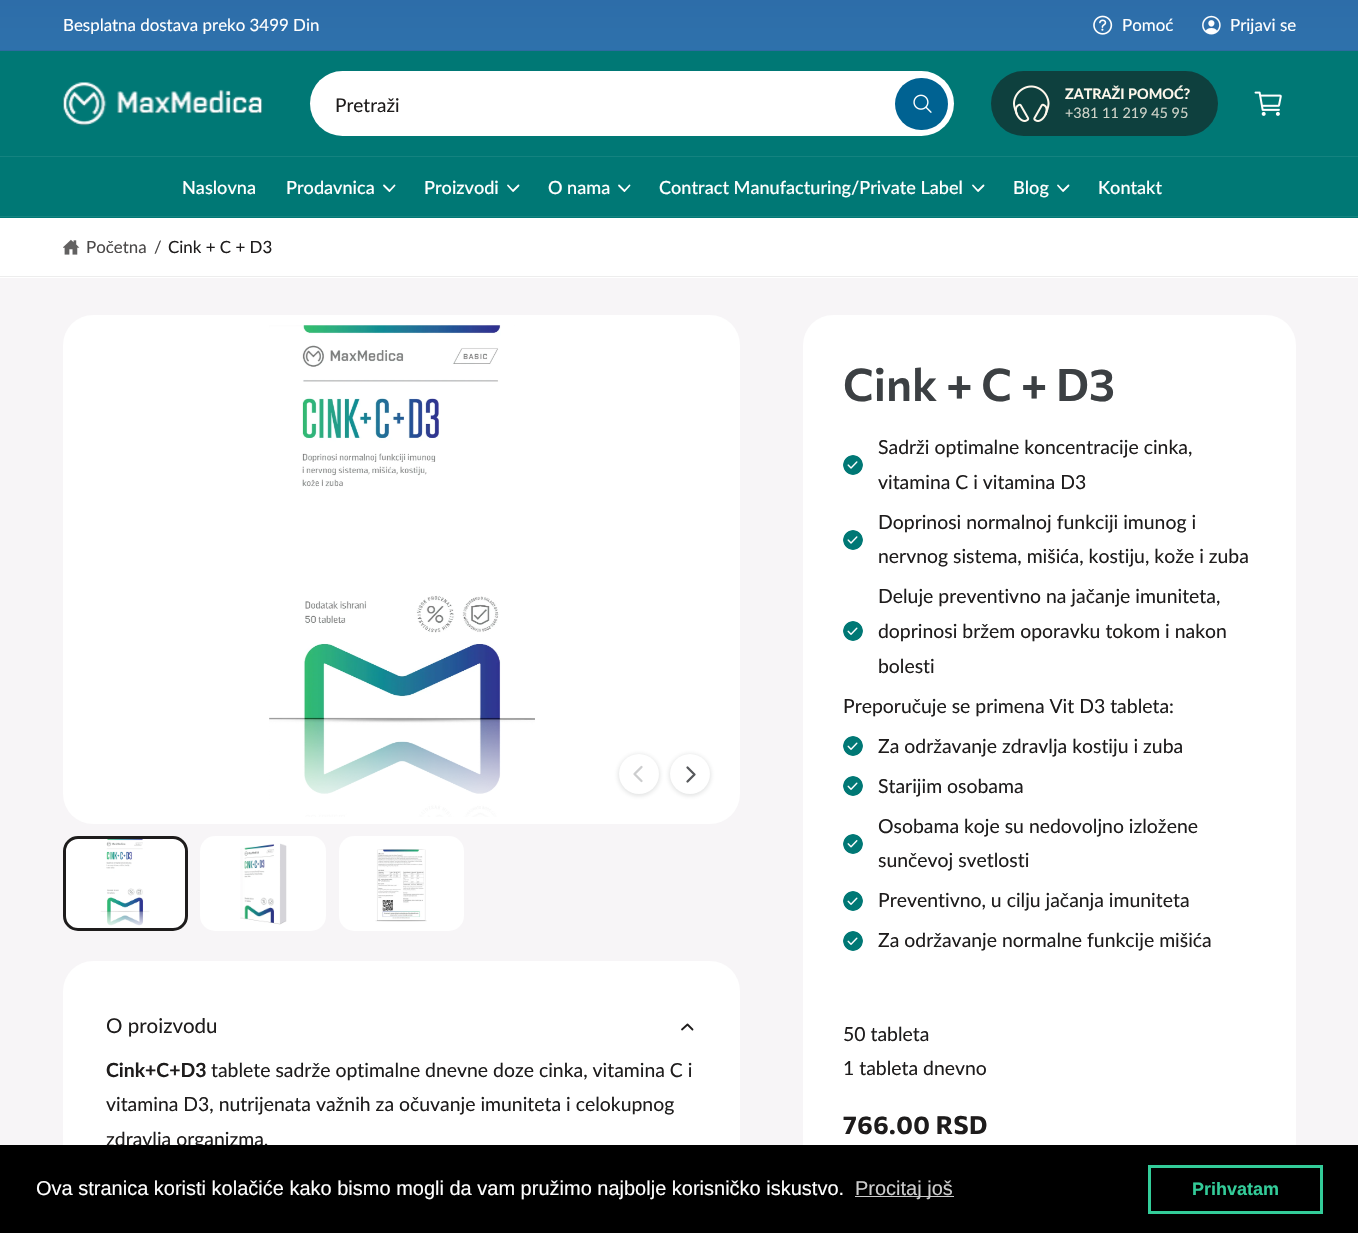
#include "include/core/SkBlurTypes.h"
#include "include/core/SkCanvas.h"
#include "include/core/SkData.h"
#include "include/core/SkFont.h"
#include "include/core/SkFontMgr.h"
#include "include/core/SkImage.h"
#include "include/core/SkMaskFilter.h"
#include "include/core/SkPaint.h"
#include "include/core/SkPathBuilder.h"
#include "include/core/SkTextBlob.h"
#include "include/effects/SkDashPathEffect.h"
#include "include/effects/SkGradientShader.h"
#include "include/utils/SkParsePath.h"

extern sk_sp<SkFontMgr> fontMgr;

void draw(SkCanvas* canvas) {
    SkPaint p;
    p.setAntiAlias(true);
    auto font = [&](const char* family, int weight, float size, bool italic = false) {
        SkFontStyle style(weight, SkFontStyle::kNormal_Width,
            italic ? SkFontStyle::kItalic_Slant : SkFontStyle::kUpright_Slant);
        SkFont result(fontMgr->matchFamilyStyle(family, style), size);
        result.setSubpixel(true);
        return result;
    };
    auto drawTracked = [&](const char* s, float x, float y, const SkFont& font, const SkPaint& ink, float letter, float word) {
        std::vector<SkGlyphID> glyphs(font.countText(s, strlen(s), SkTextEncoding::kUTF8));
        std::vector<float> xs(glyphs.size());
        font.textToGlyphs(s, strlen(s), SkTextEncoding::kUTF8, glyphs);
        font.getXPos(glyphs, xs, x);
        float extra = 0;
        for (size_t i = 0; i < glyphs.size(); i++) {
            xs[i] += extra;
            extra += letter + word * (glyphs[i] == font.unicharToGlyph(' '));
        }
        canvas->drawTextBlob(SkTextBlob::MakeFromPosHGlyphs(glyphs, xs, y, font), 0, 0, ink);
    };
    auto drawPhoto = [&](const char* path, float l, float t, float r, float b) {
        auto image = SkImages::DeferredFromEncodedData(SkData::MakeFromFileName(path));
        canvas->drawImageRect(image, SkRect::MakeLTRB(l, t, r, b), SkSamplingOptions());
    };
    canvas->clear(0xFFF7F5F7);
    {
        const SkColor colors[] = {0xFF2D6DA9, 0xFF52DAEC};
        const float stops[] = {0, 1};
        const SkPoint ends[] = {{679, 0}, {679, 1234}};
        p.setShader(SkGradientShader::MakeLinear(ends, colors, stops, 2, SkTileMode::kClamp));
        p.setAlpha(255);
    }
    canvas->drawRect(SkRect::MakeLTRB(0, 0, 1358, 50), p);
    p.setShader(nullptr);
    p.setColor(0xFF2E6AA0);
    canvas->drawRect(SkRect::MakeLTRB(0, 50, 1358, 51), p);
    auto font1 = font("Lato", 400, 16.9f);
    p.setColor(0xFFFFFFFF);
    canvas->drawString("Besplatna dostava preko 3499 Din", 63, 31, font1, p);
    drawPhoto("media/1.png", 1093, 15, 1113, 35);
    canvas->drawString("Pomoć", 1122, 31, font1, p);
    drawPhoto("media/2.png", 1202, 15, 1221, 35);
    canvas->drawString("Prijavi se", 1230, 31, font1, p);
    p.setColor(0xFF007875);
    canvas->drawRect(SkRect::MakeLTRB(0, 51, 1358, 218), p);
    drawPhoto("media/3.png", 62, 82, 263, 126);
    p.setColor(0xFFFFFFFF);
    canvas->drawRoundRect(SkRect::MakeLTRB(310, 71, 954, 136), 32.5f, 32.5f, p);
    auto font2 = font("Lato", 400, 19);
    p.setColor(0xFF1E1C1C);
    canvas->drawString("Pretraži", 335, 112, font2, p);
    p.setColor(0xFF006292);
    canvas->drawRoundRect(SkRect::MakeLTRB(895, 78, 948, 130), 26, 26, p);
    drawPhoto("media/4.png", 913, 94, 932, 113);
    p.setColor(0xFF0E403E);
    canvas->drawRoundRect(SkRect::MakeLTRB(991, 71, 1218, 136), 32.5f, 32.5f, p);
    drawPhoto("media/5.png", 1013, 85, 1050, 122);
    auto font3 = font("Lato", 700, 14.4f);
    p.setColor(0xFFFFF8EC);
    canvas->drawString("ZATRAŽI POMOĆ?", 1065, 99, font3, p);
    auto font4 = font("Lato", 400, 14.4f);
    p.setColor(0xFFCFD3C9);
    canvas->drawString("+381 11 219 45 95", 1065, 118, font4, p);
    drawPhoto("media/6.png", 1254, 91, 1282, 116);
    p.setColor(0xFF148380);
    canvas->drawRect(SkRect::MakeLTRB(0, 156, 1358, 157), p);
    canvas->drawRect(SkRect::MakeLTRB(0, 216, 1358, 217), p);
    auto font5 = font("Lato", 500, 18.1f);
    p.setColor(0xFFFFFFFF);
    canvas->drawString("Naslovna", 182, 194, font5, p);
    canvas->drawString("Prodavnica", 286, 194, font5, p);
    p.setStyle(SkPaint::kStroke_Style);
    p.setStrokeWidth(1.8f);
    p.setStrokeCap(SkPaint::kRound_Cap);
    p.setStrokeJoin(SkPaint::kRound_Join);
    canvas->drawPath(SkPathBuilder().moveTo(384, 185.5f).lineTo(389.5f, 191).lineTo(394.5f, 185.5f).detach(), p);
    p.setStyle(SkPaint::kFill_Style);
    canvas->drawString("Proizvodi", 424, 194, font5, p);
    p.setStyle(SkPaint::kStroke_Style);
    canvas->drawPath(SkPathBuilder().moveTo(508, 185.5f).lineTo(513, 191).lineTo(518.5f, 185.5f).detach(), p);
    p.setStyle(SkPaint::kFill_Style);
    canvas->drawString("O nama", 548, 194, font5, p);
    p.setStyle(SkPaint::kStroke_Style);
    canvas->drawPath(SkPathBuilder().moveTo(619, 185.5f).lineTo(624.5f, 191).lineTo(629.5f, 185.5f).detach(), p);
    p.setStyle(SkPaint::kFill_Style);
    canvas->drawString("Contract Manufacturing/Private Label", 659, 194, font5, p);
    p.setStyle(SkPaint::kStroke_Style);
    canvas->drawPath(SkPathBuilder().moveTo(973, 185.5f).lineTo(978, 191).lineTo(983.5f, 185.5f).detach(), p);
    p.setStyle(SkPaint::kFill_Style);
    canvas->drawString("Blog", 1013, 194, font5, p);
    p.setStyle(SkPaint::kStroke_Style);
    canvas->drawPath(SkPathBuilder().moveTo(1058, 185.5f).lineTo(1063, 191).lineTo(1068.5f, 185.5f).detach(), p);
    p.setStyle(SkPaint::kFill_Style);
    canvas->drawString("Kontakt", 1098, 194, font5, p);
    canvas->drawRect(SkRect::MakeLTRB(0, 218, 1358, 278), p);
    p.setColor(0xFFEDEDED);
    canvas->drawRect(SkRect::MakeLTRB(0, 276, 1358, 277), p);
    drawPhoto("media/7.png", 63, 239, 80, 255);
    p.setColor(0xFF4B4949);
    canvas->drawString("Početna", 86, 253, font1, p);
    canvas->drawString("/", 154, 253, font1, p);
    p.setColor(0xFF1E1C1C);
    canvas->drawString("Cink + C + D3", 168, 253, font1, p);
    p.setColor(0xFFFFFFFF);
    canvas->drawRoundRect(SkRect::MakeLTRB(63, 315, 740, 824), 30, 30, p);
    drawPhoto("media/8.png", 269, 325, 535, 817);
    p.setColor(0x263C4043);
    p.setMaskFilter(SkMaskFilter::MakeBlur(kNormal_SkBlurStyle, 2));
    canvas->drawRoundRect(SkRect::MakeLTRB(618, 754, 660, 796), 21, 21, p);
    p.setMaskFilter(nullptr);
    p.setColor(0xFFFFFFFF);
    canvas->drawCircle(639, 774, 20, p);
    p.setStyle(SkPaint::kStroke_Style);
    p.setStrokeWidth(2.3f);
    p.setColor(0xFFCCCDCE);
    canvas->drawPath(SkPathBuilder().moveTo(641.5f, 767).lineTo(634.5f, 774).lineTo(641.5f, 781).detach(), p);
    p.setStyle(SkPaint::kFill_Style);
    p.setColor(0x263C4043);
    p.setMaskFilter(SkMaskFilter::MakeBlur(kNormal_SkBlurStyle, 2));
    canvas->drawRoundRect(SkRect::MakeLTRB(669, 754, 711, 796), 21, 21, p);
    p.setMaskFilter(nullptr);
    p.setColor(0xFFFFFFFF);
    canvas->drawCircle(690, 774, 20, p);
    p.setStyle(SkPaint::kStroke_Style);
    p.setColor(0xFF56585B);
    canvas->drawPath(SkPathBuilder().moveTo(687.5f, 781.5f).lineTo(694.5f, 774.5f).lineTo(687.5f, 767.5f).detach(), p);
    p.setStyle(SkPaint::kFill_Style);
    p.setColor(0xFFFFFFFF);
    canvas->drawRoundRect(SkRect::MakeLTRB(63, 836, 188, 931), 15, 15, p);
    drawPhoto("media/9.png", 100, 839, 150, 926);
    p.setStyle(SkPaint::kStroke_Style);
    p.setStrokeWidth(3);
    p.setStrokeCap(SkPaint::kButt_Cap);
    p.setStrokeJoin(SkPaint::kMiter_Join);
    p.setColor(0xFF1E1C1C);
    canvas->drawRoundRect(SkRect::MakeLTRB(64.5f, 837.5f, 186.5f, 929.5f), 13.5f, 13.5f, p);
    p.setStyle(SkPaint::kFill_Style);
    p.setColor(0xFFFFFFFF);
    canvas->drawRoundRect(SkRect::MakeLTRB(200, 836, 326, 931), 15, 15, p);
    drawPhoto("media/10.png", 240, 843, 287, 925);
    canvas->drawRoundRect(SkRect::MakeLTRB(339, 836, 464, 931), 15, 15, p);
    drawPhoto("media/11.png", 375, 849, 427, 922);
    canvas->drawRoundRect(SkRect::MakeLTRB(803, 315, 1296, 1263), 30, 30, p);
    auto font6 = font("Commissioner", 600, 45);
    p.setColor(0xFF3C4043);
    canvas->drawString("Cink + C + D3", 843, 401, font6, p);
    auto font7 = font("Lato", 400, 19.4f);
    p.setColor(0xFF1E1C1C);
    canvas->drawString("Sadrži optimalne koncentracije cinka,", 878, 454, font7, p);
    drawPhoto("media/12.png", 843, 455, 863, 475);
    canvas->drawString("vitamina C i vitamina D3", 878, 489, font7, p);
    canvas->drawString("Doprinosi normalnoj funkciji imunog i", 878, 529, font7, p);
    drawPhoto("media/12.png", 843, 530, 863, 550);
    canvas->drawString("nervnog sistema, mišića, kostiju, kože i zuba", 878, 563, font7, p);
    canvas->drawString("Deluje preventivno na jačanje imuniteta,", 878, 603, font7, p);
    drawPhoto("media/13.png", 843, 621, 863, 641);
    {
        const struct { const char* s; float x, y; } items[] = {
            {"doprinosi bržem oporavku tokom i nakon", 878, 638},
            {"bolesti", 878, 673},
            {"Preporučuje se primena Vit D3 tableta:", 843, 713},
        };
        for (auto [s, x, y] : items) {
            canvas->drawString(s, x, y, font7, p);
        }
    }
    drawPhoto("media/13.png", 843, 736, 863, 756);
    canvas->drawString("Za održavanje zdravlja kostiju i zuba", 878, 753, font7, p);
    drawPhoto("media/13.png", 843, 776, 863, 796);
    canvas->drawString("Starijim osobama", 878, 793, font7, p);
    canvas->drawString("Osobama koje su nedovoljno izložene", 878, 833, font7, p);
    drawPhoto("media/14.png", 843, 834, 863, 854);
    canvas->drawString("sunčevoj svetlosti", 878, 867, font7, p);
    drawPhoto("media/13.png", 843, 891, 863, 911);
    canvas->drawString("Preventivno, u cilju jačanja imuniteta", 878, 907, font7, p);
    drawPhoto("media/13.png", 843, 931, 863, 951);
    {
        const struct { const char* s; float x, y; } items[] = {
            {"Za održavanje normalne funkcije mišića", 878, 947},
            {"50 tableta", 843, 1041},
            {"1 tableta dnevno", 843, 1075},
        };
        for (auto [s, x, y] : items) {
            canvas->drawString(s, x, y, font7, p);
        }
    }
    auto font8 = font("Commissioner", 700, 25);
    drawTracked("766.00 RSD", 843, 1134, font8, p, 0.5f, 0);
    p.setColor(0xFFFFFFFF);
    canvas->drawRoundRect(SkRect::MakeLTRB(63, 961, 740, 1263), 30, 30, p);
    auto font9 = font("Lato", 400, 20.5f);
    p.setColor(0xFF1E1C1C);
    canvas->drawString("O proizvodu", 106, 1033, font9, p);
    p.setStyle(SkPaint::kStroke_Style);
    p.setStrokeWidth(1.8f);
    p.setStrokeCap(SkPaint::kRound_Cap);
    p.setStrokeJoin(SkPaint::kRound_Join);
    canvas->drawPath(SkPathBuilder().moveTo(692.5f, 1029.5f).lineTo(687.5f, 1024.5f).lineTo(682, 1029.5f).detach(), p);
    auto font10 = font("Lato", 700, 19.4f);
    p.setStyle(SkPaint::kFill_Style);
    canvas->drawString("Cink+C+D3", 106, 1077, font10, p);
    {
        const struct { const char* s; float x, y; } items[] = {
            {"tablete sadrže optimalne dnevne doze cinka, vitamina C i", 211, 1077},
            {"vitamina D3, nutrijenata važnih za očuvanje imuniteta i celokupnog", 106, 1111},
            {"zdravlja organizma.", 106, 1146},
        };
        for (auto [s, x, y] : items) {
            canvas->drawString(s, x, y, font7, p);
        }
    }
    p.setColor(0xFF000000);
    canvas->drawRect(SkRect::MakeLTRB(0, 1145, 1358, 1233), p);
    auto font11 = font("Liberation Sans", 400, 20);
    p.setColor(0xFFFFFFFF);
    canvas->drawString("Ova stranica koristi kolačiće kako bismo mogli da vam pružimo najbolje korisničko iskustvo.", 36, 1195, font11, p);
    p.setColor(0xFFCCCCCC);
    canvas->drawRect(SkRect::MakeLTRB(855, 1196, 954, 1197), p);
    canvas->drawString("Procitaj još", 855, 1195, font11, p);
    p.setStyle(SkPaint::kStroke_Style);
    p.setStrokeWidth(3);
    p.setStrokeCap(SkPaint::kButt_Cap);
    p.setStrokeJoin(SkPaint::kMiter_Join);
    p.setColor(0xFF33CC99);
    canvas->drawRect(SkRect::MakeLTRB(1149.5f, 1166.5f, 1321.5f, 1212.5f), p);
    auto font12 = font("Liberation Sans", 700, 18);
    p.setStyle(SkPaint::kFill_Style);
    canvas->drawString("Prihvatam", 1192, 1195, font12, p);
}
